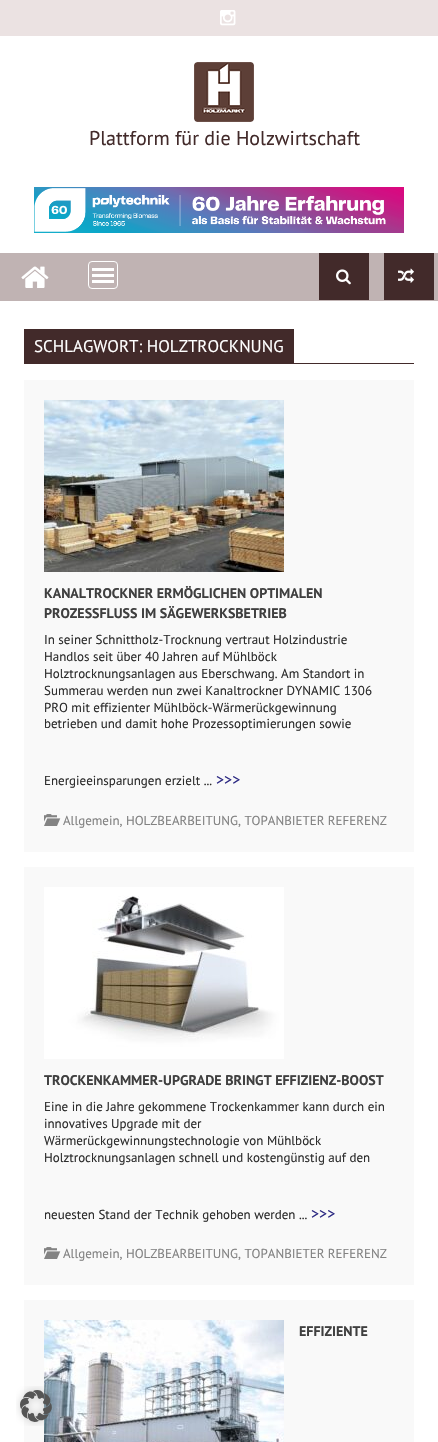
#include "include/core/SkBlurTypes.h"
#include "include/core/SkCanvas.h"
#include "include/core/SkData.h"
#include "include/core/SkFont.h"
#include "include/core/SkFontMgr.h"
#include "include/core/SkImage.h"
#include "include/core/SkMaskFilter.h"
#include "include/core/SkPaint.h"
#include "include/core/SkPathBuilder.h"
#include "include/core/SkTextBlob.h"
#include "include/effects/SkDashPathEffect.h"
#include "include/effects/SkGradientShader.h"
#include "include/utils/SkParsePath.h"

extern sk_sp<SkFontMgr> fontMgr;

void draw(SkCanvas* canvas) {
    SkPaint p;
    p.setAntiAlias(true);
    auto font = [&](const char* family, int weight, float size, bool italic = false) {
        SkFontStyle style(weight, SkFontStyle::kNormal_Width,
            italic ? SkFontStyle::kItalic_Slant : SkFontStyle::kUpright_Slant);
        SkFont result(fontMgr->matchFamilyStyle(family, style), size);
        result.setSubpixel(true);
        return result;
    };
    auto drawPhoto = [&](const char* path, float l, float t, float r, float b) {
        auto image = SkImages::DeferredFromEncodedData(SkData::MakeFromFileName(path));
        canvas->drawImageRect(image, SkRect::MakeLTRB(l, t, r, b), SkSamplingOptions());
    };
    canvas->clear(0xFFFFFFFF);
    p.setColor(0xFFEBE2E2);
    canvas->drawRect(SkRect::MakeLTRB(0, 0, 438, 36), p);
    drawPhoto("media/1.png", 220, 10, 236, 26);
    drawPhoto("media/2.png", 194, 62, 254, 122);
    auto font1 = font("PT Sans", 400, 20);
    p.setColor(0xFF422A2A);
    canvas->drawString("Plattform für die Holzwirtschaft", 89, 145, font1, p);
    drawPhoto("media/3.png", 34, 187, 404, 233);
    p.setColor(0xFFC0B3B3);
    canvas->drawRect(SkRect::MakeLTRB(0, 253, 438, 301), p);
    drawPhoto("media/4.png", 21, 266, 49, 288);
    p.setColor(0xFF422A2A);
    canvas->drawRect(SkRect::MakeLTRB(319, 253, 369, 300), p);
    drawPhoto("media/5.png", 336, 269, 351, 285);
    canvas->drawRect(SkRect::MakeLTRB(384, 253, 434, 300), p);
    drawPhoto("media/6.png", 398, 268, 414, 283);
    p.setStyle(SkPaint::kStroke_Style);
    p.setStrokeWidth(1);
    p.setColor(0xFFFFFFFF);
    canvas->drawRoundRect(SkRect::MakeLTRB(88.5f, 261.5f, 117.5f, 288.5f), 3.5f, 3.5f, p);
    p.setStyle(SkPaint::kFill_Style);
    {
        const struct { float l, t, r, b; SkColor color; } items[] = {
            {92, 280, 114, 283, 0xFFFFFFFF},
            {92, 274, 114, 277, 0xFFFFFFFF},
            {92, 268, 114, 271, 0xFFFFFFFF},
            {24, 363, 414, 364, 0xFF422A2A},
            {24, 329, 294, 363, 0xFF422A2A},
        };
        for (auto [l, t, r, b, color] : items) {
            p.setColor(color);
            canvas->drawRect(SkRect::MakeLTRB(l, t, r, b), p);
        }
    }
    auto font2 = font("PT Sans", 400, 17);
    p.setColor(0xFFFFFFFF);
    canvas->drawString("SCHLAGWORT: HOLZTROCKNUNG", 34, 352, font2, p);
    p.setColor(0xFFF9F9F9);
    canvas->drawRect(SkRect::MakeLTRB(24, 380, 414, 852), p);
    drawPhoto("media/7.png", 44, 400, 284, 572);
    auto font3 = font("PT Sans", 700, 14);
    p.setColor(0xFF3F3F3F);
    canvas->drawString("KANALTROCKNER ERMÖGLICHEN OPTIMALEN", 44, 598, font3, p);
    canvas->drawString("PROZESSFLUSS IM SÄGEWERKSBETRIEB", 44, 618, font3, p);
    auto font4 = font("PT Sans", 400, 13);
    p.setColor(0xFF2D2D2D);
    {
        const struct { const char* s; float x, y; } items[] = {
            {"In seiner Schnittholz-Trocknung vertraut Holzindustrie", 44, 644},
            {"Handlos seit über 40 Jahren auf Mühlböck", 44, 661},
            {"Holztrocknungsanlagen aus Eberschwang. Am Standort in", 44, 678},
            {"Summerau werden nun zwei Kanaltrockner DYNAMIC 1306", 44, 695},
            {"PRO mit effizienter Mühlböck-Wärmerückgewinnung", 44, 712},
            {"betrieben und damit hohe Prozessoptimierungen sowie", 44, 728},
            {"Energieeinsparungen erzielt ...", 44, 785},
        };
        for (auto [s, x, y] : items) {
            canvas->drawString(s, x, y, font4, p);
        }
    }
    auto font5 = font("PT Sans", 400, 16);
    p.setColor(0xFF2E2B84);
    canvas->drawString(">>>", 216, 785, font5, p);
    drawPhoto("media/8.png", 44, 814, 61, 826);
    p.setColor(0xFF828282);
    canvas->drawString("Allgemein, HOLZBEARBEITUNG, TOPANBIETER REFERENZ", 63, 825, font4, p);
    p.setColor(0xFFF9F9F9);
    canvas->drawRect(SkRect::MakeLTRB(24, 867, 414, 1285), p);
    drawPhoto("media/9.png", 44, 887, 284, 1059);
    p.setColor(0xFF3F3F3F);
    canvas->drawString("TROCKENKAMMER-UPGRADE BRINGT EFFIZIENZ-BOOST", 44, 1085, font3, p);
    p.setColor(0xFF2D2D2D);
    {
        const struct { const char* s; float x, y; } items[] = {
            {"Eine in die Jahre gekommene Trockenkammer kann durch ein", 44, 1111},
            {"innovatives Upgrade mit der", 44, 1128},
            {"Wärmerückgewinnungstechnologie von Mühlböck", 44, 1145},
            {"Holztrocknungsanlagen schnell und kostengünstig auf den", 44, 1162},
            {"neuesten Stand der Technik gehoben werden ...", 44, 1219},
        };
        for (auto [s, x, y] : items) {
            canvas->drawString(s, x, y, font4, p);
        }
    }
    p.setColor(0xFF2E2B84);
    canvas->drawString(">>>", 311, 1219, font5, p);
    drawPhoto("media/8.png", 44, 1247, 61, 1259);
    p.setColor(0xFF828282);
    canvas->drawString("Allgemein, HOLZBEARBEITUNG, TOPANBIETER REFERENZ", 63, 1258, font4, p);
    p.setColor(0xFFF9F9F9);
    canvas->drawRect(SkRect::MakeLTRB(24, 1300, 414, 1442), p);
    drawPhoto("media/10.png", 44, 1320, 284, 1442);
    p.setColor(0xFF3F3F3F);
    canvas->drawString("EFFIZIENTE", 299, 1336, font3, p);
    drawPhoto("media/11.png", 16, 1386, 56, 1426);
}
